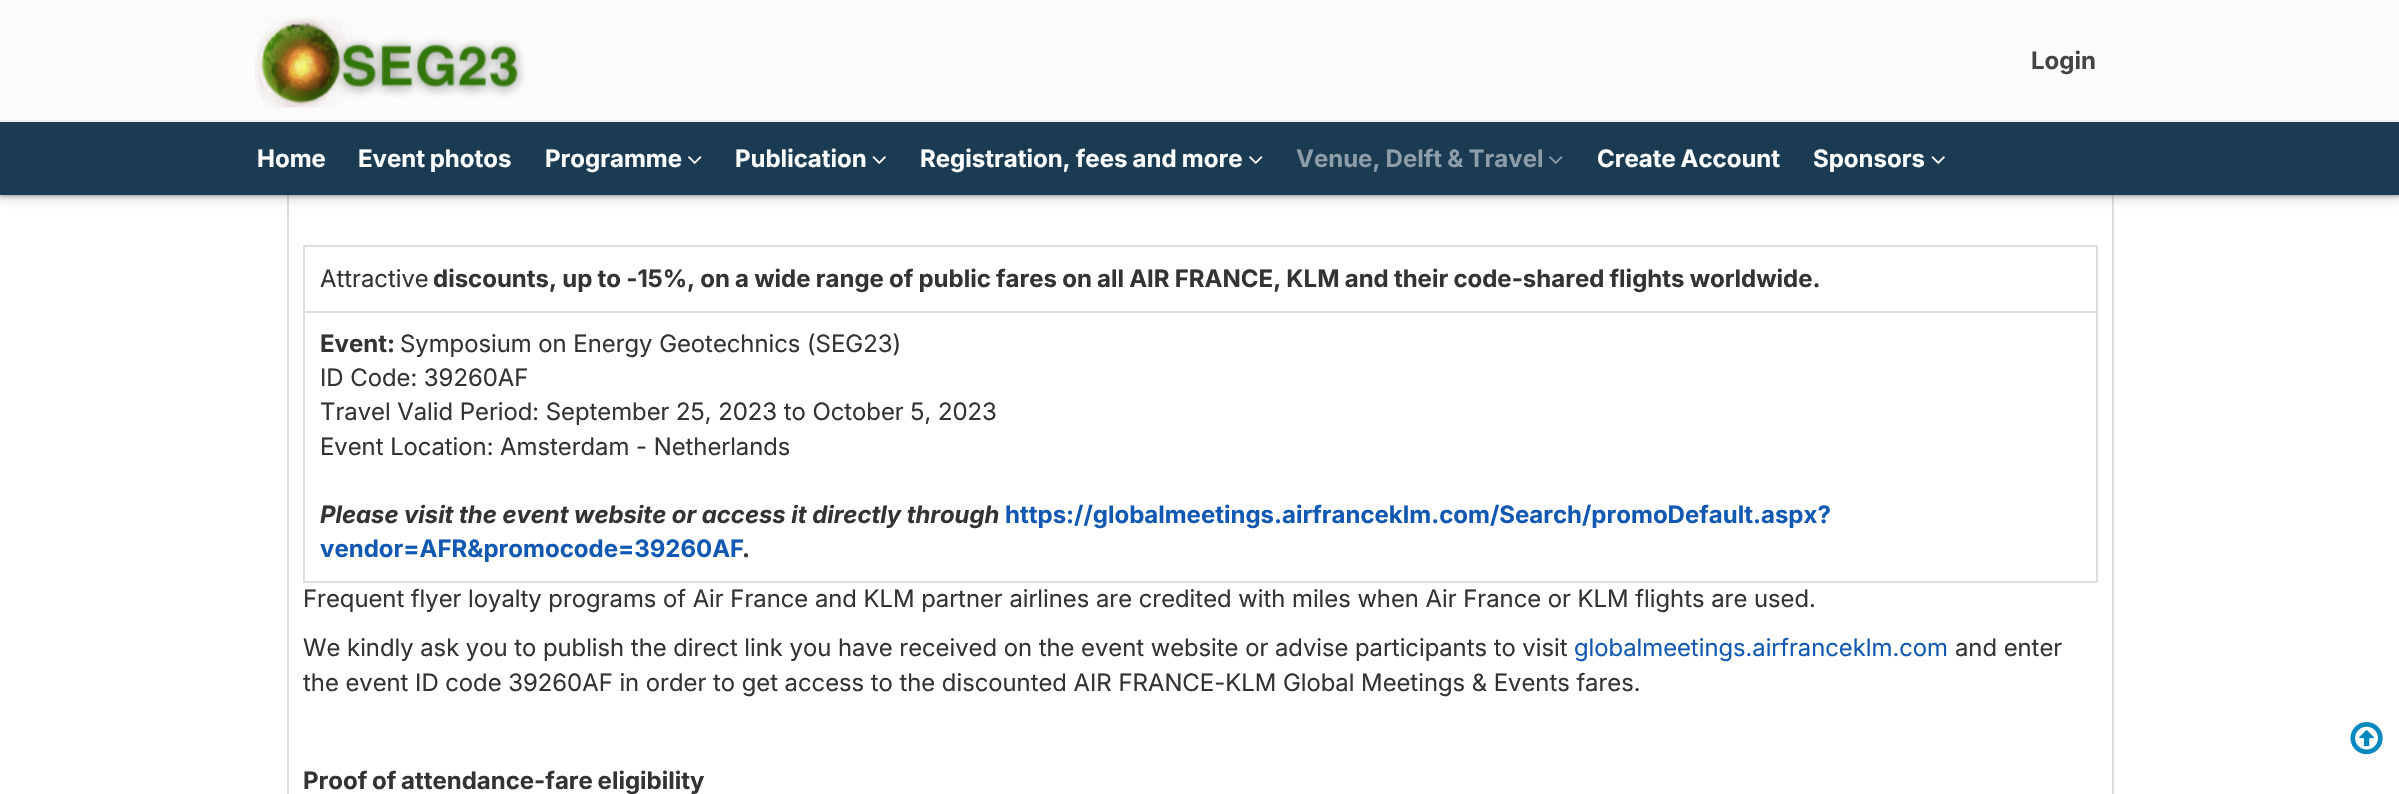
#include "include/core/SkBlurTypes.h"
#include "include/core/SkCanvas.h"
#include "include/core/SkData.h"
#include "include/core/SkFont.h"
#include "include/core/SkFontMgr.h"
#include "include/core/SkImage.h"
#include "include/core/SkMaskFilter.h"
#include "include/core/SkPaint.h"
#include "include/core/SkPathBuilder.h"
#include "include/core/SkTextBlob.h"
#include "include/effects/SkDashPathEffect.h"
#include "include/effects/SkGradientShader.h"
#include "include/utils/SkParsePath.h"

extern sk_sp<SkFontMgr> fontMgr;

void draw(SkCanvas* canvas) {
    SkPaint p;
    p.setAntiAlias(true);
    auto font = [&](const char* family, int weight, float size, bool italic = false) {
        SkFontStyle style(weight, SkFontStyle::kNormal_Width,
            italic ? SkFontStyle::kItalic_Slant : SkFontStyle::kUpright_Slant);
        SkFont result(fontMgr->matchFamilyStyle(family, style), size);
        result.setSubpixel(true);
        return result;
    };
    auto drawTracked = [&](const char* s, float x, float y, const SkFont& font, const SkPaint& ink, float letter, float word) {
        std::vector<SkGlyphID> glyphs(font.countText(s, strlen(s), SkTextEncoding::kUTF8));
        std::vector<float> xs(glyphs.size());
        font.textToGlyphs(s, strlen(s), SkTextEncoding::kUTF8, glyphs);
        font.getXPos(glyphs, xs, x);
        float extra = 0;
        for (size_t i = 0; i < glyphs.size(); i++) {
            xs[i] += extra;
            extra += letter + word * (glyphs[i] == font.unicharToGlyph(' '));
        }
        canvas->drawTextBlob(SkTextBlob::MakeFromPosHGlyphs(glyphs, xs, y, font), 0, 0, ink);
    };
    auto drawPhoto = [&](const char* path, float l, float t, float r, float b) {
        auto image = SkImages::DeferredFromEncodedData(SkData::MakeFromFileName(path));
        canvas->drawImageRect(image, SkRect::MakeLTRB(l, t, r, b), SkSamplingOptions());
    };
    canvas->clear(0xFFFFFFFF);
    p.setColor(0xFFDDDDDD);
    canvas->drawRect(SkRect::MakeLTRB(2112, 195, 2114, 794), p);
    canvas->drawRect(SkRect::MakeLTRB(287, 195, 289, 794), p);
    p.setColor(0x263C4043);
    p.setMaskFilter(SkMaskFilter::MakeBlur(kNormal_SkBlurStyle, 4.5f));
    canvas->drawRect(SkRect::MakeLTRB(-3, 0, 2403, 201), p);
    p.setMaskFilter(nullptr);
    p.setColor(0x4D3C4043);
    p.setMaskFilter(SkMaskFilter::MakeBlur(kNormal_SkBlurStyle, 1.5f));
    canvas->drawRect(SkRect::MakeLTRB(0, 2, 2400, 197), p);
    p.setMaskFilter(nullptr);
    {
        const struct { float l, t, r, b; SkColor color; } items[] = {
            {0, 122, 2399, 195, 0xFF1B3B52},
            {0, 0, 2399, 120, 0xFFFBFBFB},
            {0, 120, 2399, 122, 0xFFEEEEEE},
        };
        for (auto [l, t, r, b, color] : items) {
            p.setColor(color);
            canvas->drawRect(SkRect::MakeLTRB(l, t, r, b), p);
        }
    }
    drawPhoto("media/1.png", 255, 17, 525, 108);
    auto font1 = font("Inter", 700, 24);
    p.setColor(0xFF444444);
    canvas->drawString("Login", 2031, 69, font1, p);
    p.setColor(0xFFFEFFFF);
    canvas->drawString("Home", 257, 167, font1, p);
    drawTracked("Event photos", 358, 167, font1, p, 0, -1);
    canvas->drawString("Programme", 545, 167, font1, p);
    drawPhoto("media/2.png", 688, 156, 702, 164);
    canvas->drawString("Publication", 735, 167, font1, p);
    drawPhoto("media/3.png", 872, 156, 886, 164);
    drawTracked("Registration, fees and more", 920, 167, font1, p, 0, -0.5f);
    drawPhoto("media/2.png", 1249, 156, 1263, 164);
    p.setColor(0xFF8D9DA9);
    drawTracked("Venue, Delft & Travel", 1296, 167, font1, p, 0, -0.5f);
    drawPhoto("media/4.png", 1549, 156, 1563, 164);
    p.setColor(0xFFFEFFFF);
    drawTracked("Create Account", 1597, 167, font1, p, 0, -1);
    canvas->drawString("Sponsors", 1813, 167, font1, p);
    drawPhoto("media/3.png", 1931, 156, 1945, 164);
    {
        const struct { float l, t, r, b; SkColor color; } items[] = {
            {303, 245, 2097, 247, 0xFFDDDDDD},
            {303, 311, 2097, 313, 0xFFDDDDDD},
            {2096, 311, 2098, 582, 0xFFDDDDDD},
            {2096, 245, 2098, 312, 0xFFDDDDDD},
            {303, 581, 2097, 583, 0xFFDDDDDD},
            {303, 311, 305, 582, 0xFFDDDDDD},
            {303, 245, 305, 312, 0xFFDDDDDD},
        };
        for (auto [l, t, r, b, color] : items) {
            p.setColor(color);
            canvas->drawRect(SkRect::MakeLTRB(l, t, r, b), p);
        }
    }
    auto font2 = font("Inter", 400, 24);
    p.setColor(0xFF333333);
    canvas->drawString("Attractive", 320, 287, font2, p);
    drawTracked("discounts, up to -15%, on a wide range of public fares on all AIR FRANCE, KLM and their code-shared flights worldwide.", 433, 287, font1, p, 0, -0.5f);
    canvas->drawString("Event:", 320, 352, font1, p);
    {
        const struct { const char* s; float x, y; } items[] = {
            {"Symposium on Energy Geotechnics (SEG23)", 400, 352},
            {"ID Code: 39260AF", 320, 386},
            {"Travel Valid Period: September 25, 2023 to October 5, 2023", 320, 420},
            {"Event Location: Amsterdam - Netherlands", 320, 455},
        };
        for (auto [s, x, y] : items) {
            canvas->drawString(s, x, y, font2, p);
        }
    }
    auto font3 = font("Inter", 700, 24, true);
    canvas->drawString("Please visit the event website or access it directly through", 320, 523, font3, p);
    p.setColor(0xFF1058B1);
    canvas->drawString("https://globalmeetings.airfranceklm.com/Search/promoDefault.aspx?", 1005, 523, font1, p);
    canvas->drawString("vendor=AFR&promocode=39260AF", 320, 557, font1, p);
    p.setColor(0xFF333333);
    canvas->drawString(".", 742, 557, font1, p);
    canvas->drawString("Frequent flyer loyalty programs of Air France and KLM partner airlines are credited with miles when Air France or KLM flights are used.", 303, 607, font2, p);
    canvas->drawString("We kindly ask you to publish the direct link you have received on the event website or advise participants to visit", 303, 656, font2, p);
    p.setColor(0xFF1058B1);
    canvas->drawString("globalmeetings.airfranceklm.com", 1574, 656, font2, p);
    p.setColor(0xFF333333);
    canvas->drawString("and enter", 1955, 656, font2, p);
    canvas->drawString("the event ID code 39260AF in order to get access to the discounted AIR FRANCE-KLM Global Meetings & Events fares.", 303, 691, font2, p);
    drawTracked("Proof of attendance-fare eligibility", 303, 789, font1, p, 0, -1);
    drawPhoto("media/5.png", 2350, 722, 2383, 755);
}
